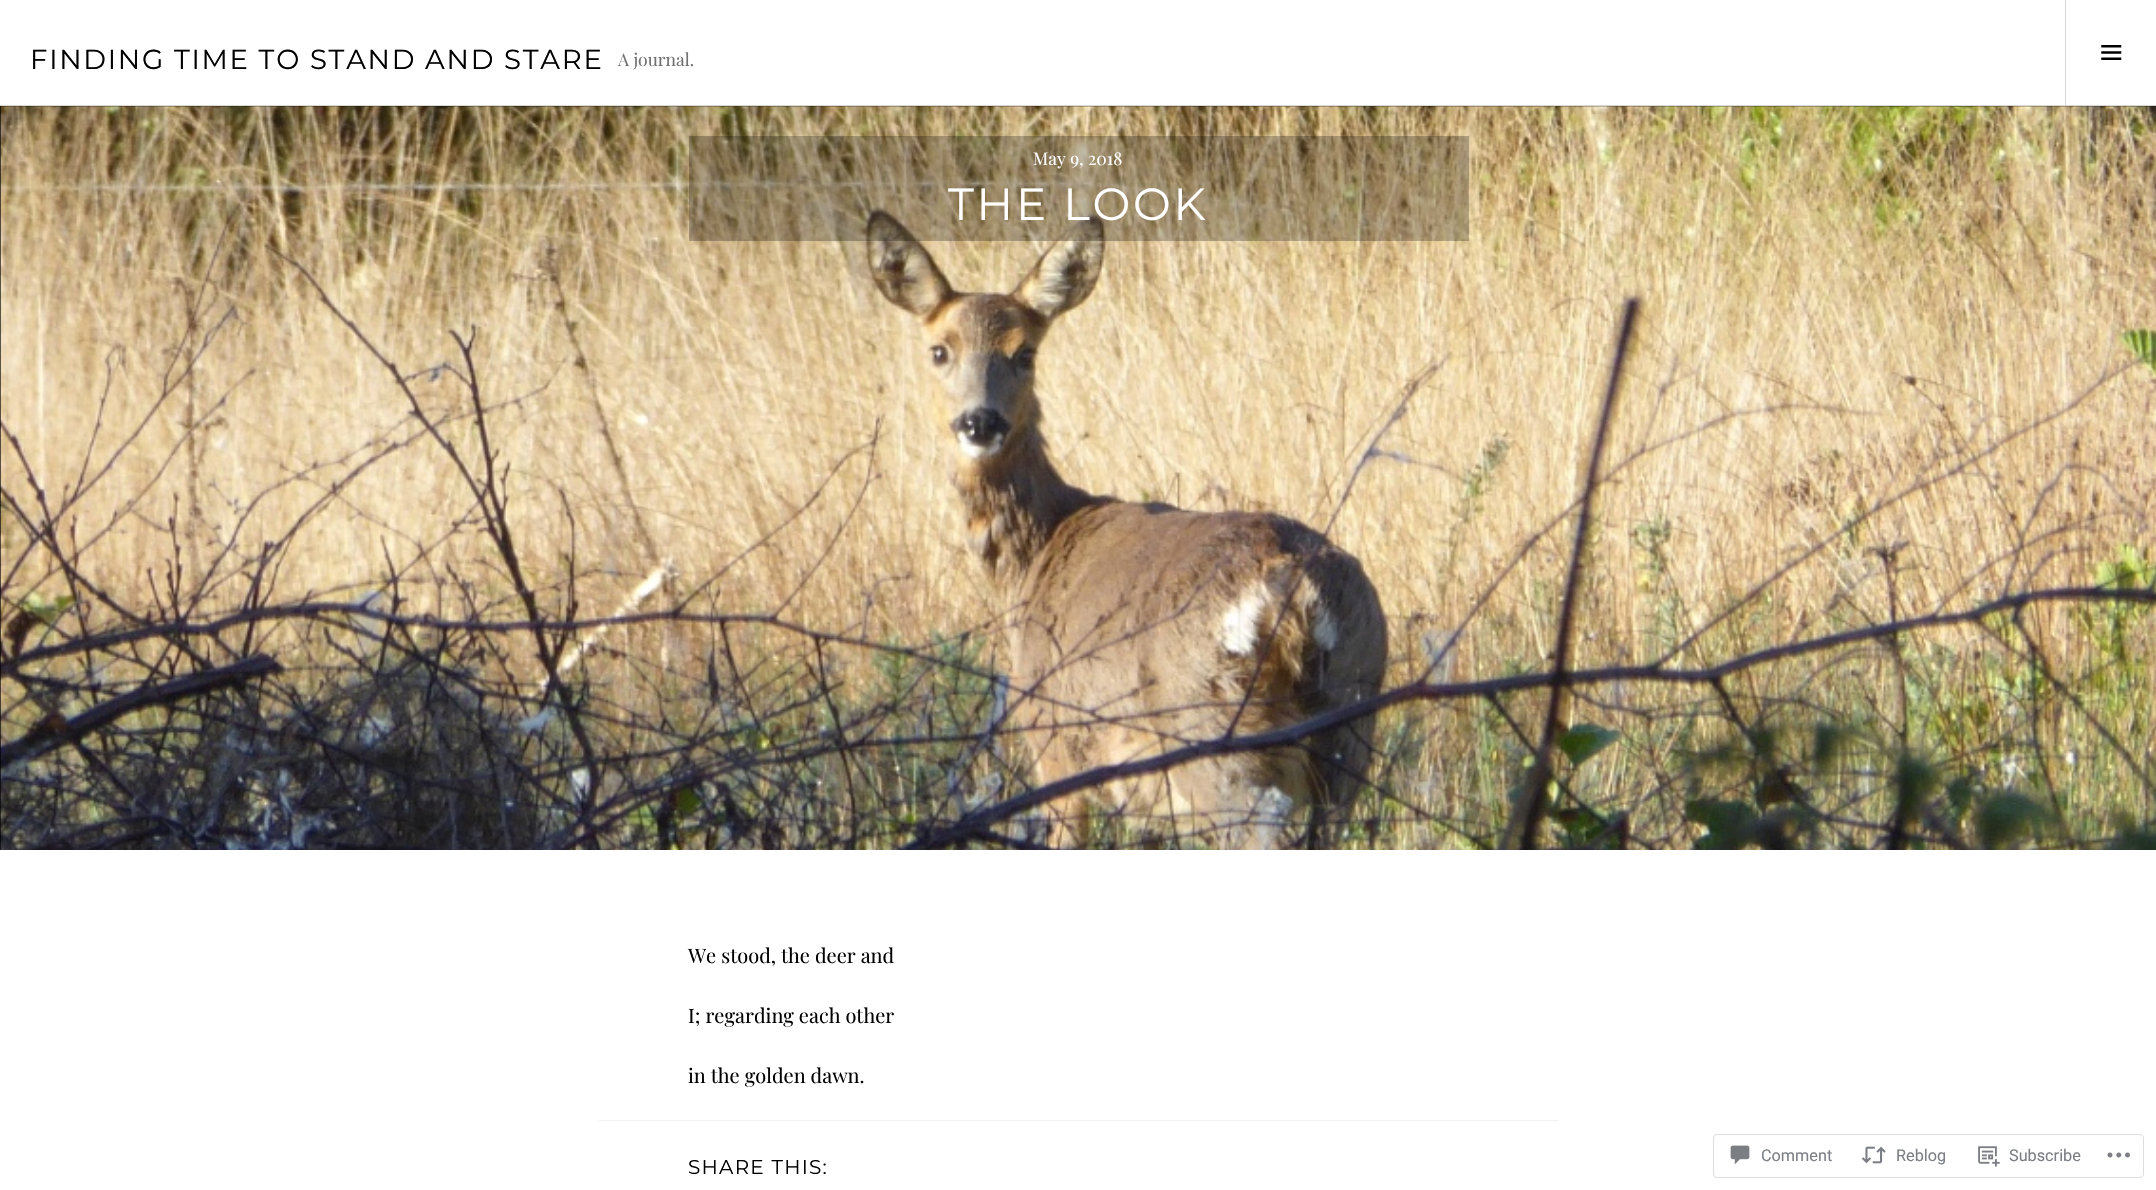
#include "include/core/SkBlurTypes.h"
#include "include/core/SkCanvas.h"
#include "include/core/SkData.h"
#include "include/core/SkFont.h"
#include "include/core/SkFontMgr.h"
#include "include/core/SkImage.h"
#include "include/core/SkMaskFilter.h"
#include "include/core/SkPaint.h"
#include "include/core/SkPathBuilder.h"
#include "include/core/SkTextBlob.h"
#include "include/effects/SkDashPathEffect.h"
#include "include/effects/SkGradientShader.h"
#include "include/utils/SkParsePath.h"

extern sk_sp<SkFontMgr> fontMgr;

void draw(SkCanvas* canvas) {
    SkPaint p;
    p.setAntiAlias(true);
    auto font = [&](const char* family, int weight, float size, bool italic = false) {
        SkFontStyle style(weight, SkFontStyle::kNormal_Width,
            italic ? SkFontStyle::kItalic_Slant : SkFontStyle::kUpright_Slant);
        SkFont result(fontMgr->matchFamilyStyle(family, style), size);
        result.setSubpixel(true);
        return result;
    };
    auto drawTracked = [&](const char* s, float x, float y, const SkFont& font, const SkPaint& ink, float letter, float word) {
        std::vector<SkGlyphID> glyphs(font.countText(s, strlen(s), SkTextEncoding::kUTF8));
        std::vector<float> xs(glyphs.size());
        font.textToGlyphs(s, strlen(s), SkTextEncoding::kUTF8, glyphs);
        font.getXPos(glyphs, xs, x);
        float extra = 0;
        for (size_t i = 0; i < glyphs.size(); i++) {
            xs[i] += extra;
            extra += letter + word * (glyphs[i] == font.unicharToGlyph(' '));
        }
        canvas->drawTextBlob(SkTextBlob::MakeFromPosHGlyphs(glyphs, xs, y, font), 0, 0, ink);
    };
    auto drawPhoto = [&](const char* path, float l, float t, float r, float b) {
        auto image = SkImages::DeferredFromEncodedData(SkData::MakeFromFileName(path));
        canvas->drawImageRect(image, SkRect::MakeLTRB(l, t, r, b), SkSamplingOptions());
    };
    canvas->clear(0xFFFFFFFF);
    p.setColor(0xFFD8D8D8);
    canvas->drawRect(SkRect::MakeLTRB(0, 105, 2156, 106), p);
    auto font1 = font("Montserrat", 400, 27.5f);
    p.setColor(0xFF000000);
    drawTracked("FINDING TIME TO STAND AND STARE", 30, 69, font1, p, 1.75f, 0);
    auto font2 = font("Playfair Display", 400, 17.5f);
    p.setColor(0xFF707070);
    canvas->drawString("A journal.", 618, 66, font2, p);
    p.setColor(0xFFD8D8D8);
    canvas->drawRect(SkRect::MakeLTRB(2065, 0, 2066, 105), p);
    drawPhoto("media/1.png", 2101, 45, 2122, 60);
    p.setColor(0xFF000000);
    canvas->drawRect(SkRect::MakeLTRB(0, 106, 2156, 850), p);
    drawPhoto("media/2.png", 0, 106, 2156, 850);
    p.setColor(0x40000000);
    canvas->drawRect(SkRect::MakeLTRB(689, 136, 1469, 241), p);
    p.setColor(0xFFFFFFFF);
    canvas->drawString("May 9, 2018", 1033, 165, font2, p);
    auto font3 = font("Montserrat", 400, 45);
    drawTracked("THE LOOK", 948, 220, font3, p, 2.75f, 0);
    auto font4 = font("Playfair Display", 400, 20);
    p.setColor(0xFF000000);
    {
        const struct { const char* s; float x, y; } items[] = {
            {"We stood, the deer and", 688, 963},
            {"I; regarding each other", 688, 1023},
            {"in the golden dawn.", 688, 1083},
        };
        for (auto [s, x, y] : items) {
            canvas->drawString(s, x, y, font4, p);
        }
    }
    p.setColor(0xFFF2F2F2);
    canvas->drawRect(SkRect::MakeLTRB(599, 1120, 1559, 1121), p);
    auto font5 = font("Montserrat", 400, 20);
    p.setColor(0xFF000000);
    drawTracked("SHARE THIS:", 688, 1174, font5, p, 1.25f, 0);
    p.setStyle(SkPaint::kStroke_Style);
    p.setStrokeWidth(1);
    p.setColor(0xFFDDDDDF);
    canvas->drawRoundRect(SkRect::MakeLTRB(1713.5f, 1134.5f, 2143.5f, 1177.5f), 3.5f, 3.5f, p);
    drawPhoto("media/3.png", 1730, 1145, 1750, 1165);
    auto font6 = font("Roboto", 400, 16.25f);
    p.setStyle(SkPaint::kFill_Style);
    p.setColor(0xFF7B7F85);
    canvas->drawString("Comment", 1761, 1161, font6, p);
    drawPhoto("media/4.png", 1861, 1146, 1886, 1164);
    canvas->drawString("Reblog", 1896, 1161, font6, p);
    drawPhoto("media/5.png", 1978, 1146, 2000, 1167);
    canvas->drawString("Subscribe", 2009, 1161, font6, p);
    drawPhoto("media/6.png", 2107, 1152, 2130, 1158);
}
